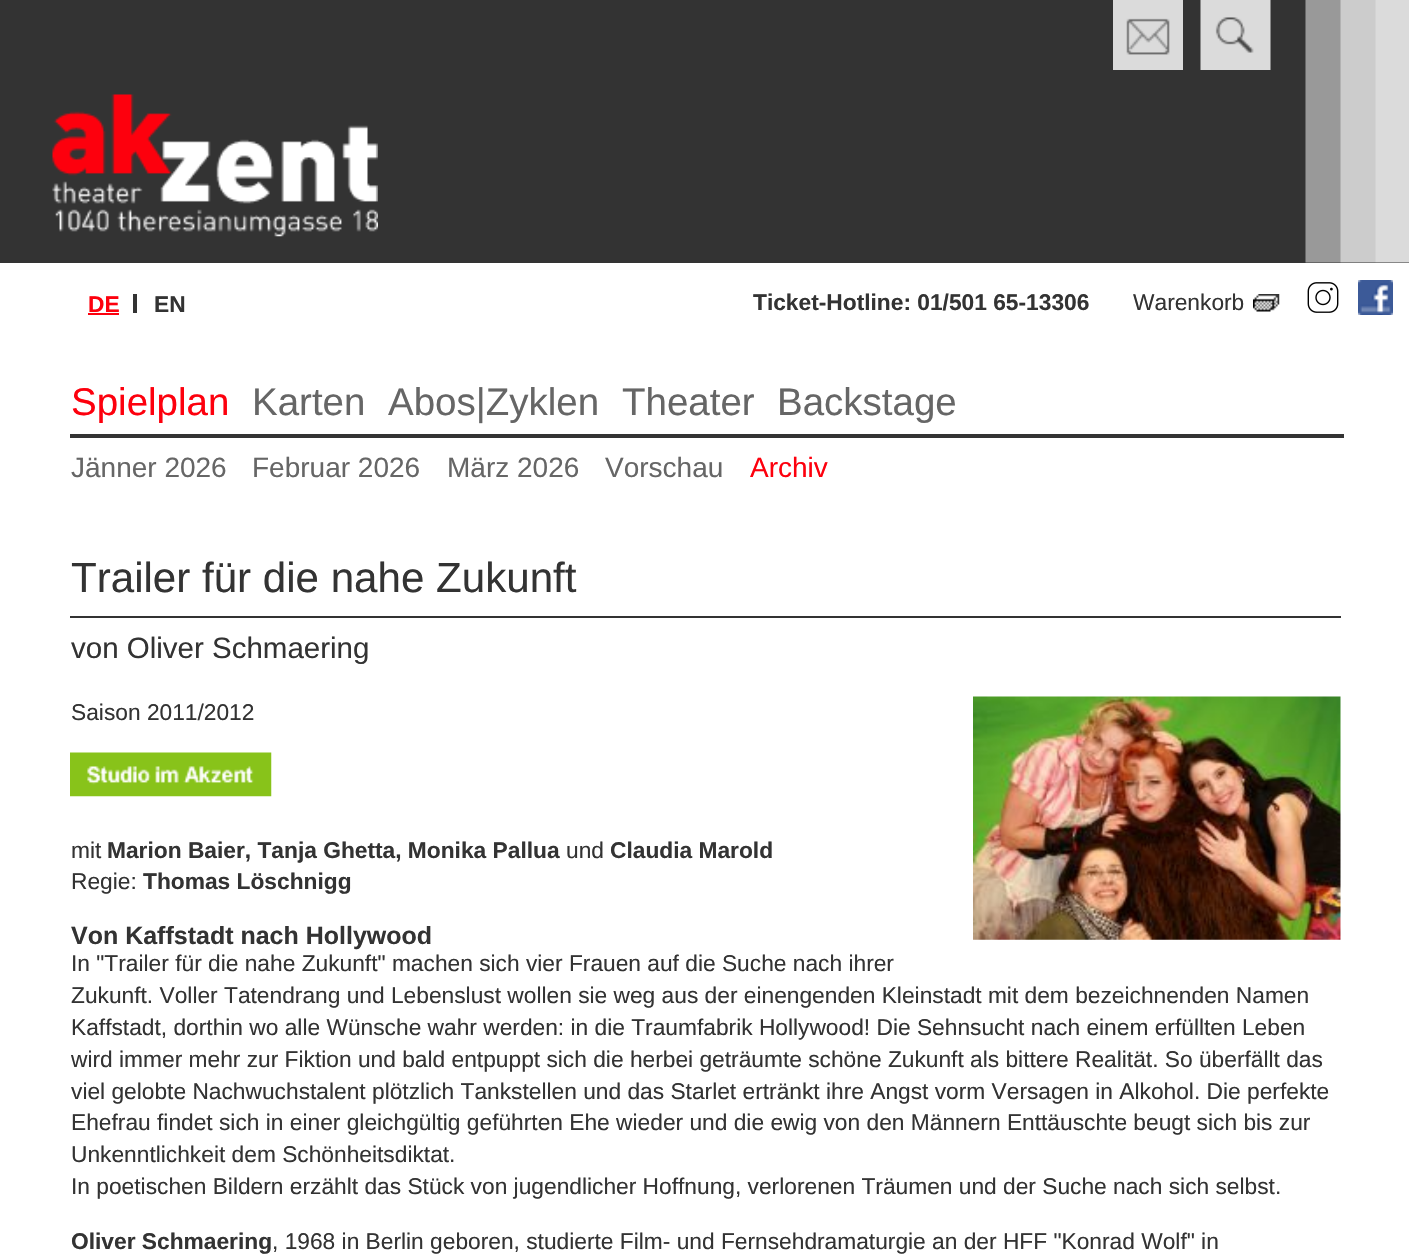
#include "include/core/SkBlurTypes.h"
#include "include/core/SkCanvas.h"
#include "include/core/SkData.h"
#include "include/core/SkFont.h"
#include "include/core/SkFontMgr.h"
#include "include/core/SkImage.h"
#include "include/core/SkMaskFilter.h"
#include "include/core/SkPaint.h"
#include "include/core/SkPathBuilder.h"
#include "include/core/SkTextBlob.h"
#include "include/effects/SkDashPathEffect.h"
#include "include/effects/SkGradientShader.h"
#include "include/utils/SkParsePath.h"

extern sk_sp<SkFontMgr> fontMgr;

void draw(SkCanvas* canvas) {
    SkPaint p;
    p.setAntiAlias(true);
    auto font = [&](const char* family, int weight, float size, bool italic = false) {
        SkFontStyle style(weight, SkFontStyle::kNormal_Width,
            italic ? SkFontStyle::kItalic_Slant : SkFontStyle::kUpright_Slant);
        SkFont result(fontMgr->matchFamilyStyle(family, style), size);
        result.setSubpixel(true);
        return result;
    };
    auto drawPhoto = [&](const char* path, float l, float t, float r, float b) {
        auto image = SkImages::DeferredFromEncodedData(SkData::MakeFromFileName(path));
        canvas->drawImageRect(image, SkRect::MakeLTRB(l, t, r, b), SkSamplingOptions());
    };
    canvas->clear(0xFFFFFFFF);
    p.setColor(0xFF333333);
    canvas->drawRect(SkRect::MakeLTRB(0, 0, 1409, 263), p);
    drawPhoto("media/1.png", 1305, 0, 1409, 263);
    drawPhoto("media/2.png", 52, 94, 378, 237);
    drawPhoto("media/3.png", 1113, 0, 1183, 70);
    drawPhoto("media/4.png", 1200, 0, 1271, 70);
    auto font1 = font("Liberation Sans", 700, 22.75f);
    p.setColor(0xFFFD000D);
    canvas->drawString("DE", 88, 312, font1, p);
    p.setColor(0xFFFC000D);
    canvas->drawRect(SkRect::MakeLTRB(88, 313, 119, 315), p);
    p.setColor(0xFF333333);
    canvas->drawRect(SkRect::MakeLTRB(133, 294, 137, 313), p);
    canvas->drawString("EN", 154, 312, font1, p);
    canvas->drawString("Ticket-Hotline: 01/501 65-13306", 753, 310, font1, p);
    auto font2 = font("Liberation Sans", 400, 22.75f);
    canvas->drawString("Warenkorb", 1133, 310, font2, p);
    drawPhoto("media/5.png", 1253, 294, 1280, 312);
    drawPhoto("media/6.png", 1307, 282, 1339, 313);
    drawPhoto("media/7.png", 1358, 280, 1393, 315);
    canvas->drawRect(SkRect::MakeLTRB(70, 434, 1344, 438), p);
    auto font3 = font("Liberation Sans", 400, 38.5f);
    p.setColor(0xFFFD000D);
    canvas->drawString("Spielplan", 71, 415, font3, p);
    p.setColor(0xFF666666);
    {
        const struct { const char* s; float x, y; } items[] = {
            {"Karten", 252, 415},
            {"Abos|Zyklen", 388, 415},
            {"Theater", 622, 415},
            {"Backstage", 777, 415},
        };
        for (auto [s, x, y] : items) {
            canvas->drawString(s, x, y, font3, p);
        }
    }
    auto font4 = font("Liberation Sans", 400, 28);
    {
        const struct { const char* s; float x, y; } items[] = {
            {"Jänner 2026", 71, 477},
            {"Februar 2026", 252, 477},
            {"März 2026", 447, 477},
            {"Vorschau", 605, 477},
        };
        for (auto [s, x, y] : items) {
            canvas->drawString(s, x, y, font4, p);
        }
    }
    p.setColor(0xFFFD000D);
    canvas->drawString("Archiv", 750, 477, font4, p);
    p.setColor(0xFF333333);
    canvas->drawRect(SkRect::MakeLTRB(70, 616, 1341, 618), p);
    auto font5 = font("Liberation Sans", 400, 42.1f);
    canvas->drawString("Trailer für die nahe Zukunft", 71, 592, font5, p);
    auto font6 = font("Liberation Sans", 400, 29.5f);
    canvas->drawString("von Oliver Schmaering", 71, 658, font6, p);
    canvas->drawString("Saison 2011/2012", 71, 720, font2, p);
    drawPhoto("media/8.png", 973, 696, 1341, 940);
    drawPhoto("media/9.png", 70, 752, 272, 797);
    canvas->drawString("mit", 71, 858, font2, p);
    canvas->drawString("Marion Baier, Tanja Ghetta, Monika Pallua", 107, 858, font1, p);
    canvas->drawString("und", 566, 858, font2, p);
    canvas->drawString("Claudia Marold", 610, 858, font1, p);
    canvas->drawString("Regie:", 71, 889, font2, p);
    canvas->drawString("Thomas Löschnigg", 143, 889, font1, p);
    auto font7 = font("Liberation Sans", 700, 25);
    canvas->drawString("Von Kaffstadt nach Hollywood", 71, 944, font7, p);
    {
        const struct { const char* s; float x, y; } items[] = {
            {"In \"Trailer für die nahe Zukunft\" machen sich vier Frauen auf die Suche nach ihrer", 71, 971},
            {"Zukunft. Voller Tatendrang und Lebenslust wollen sie weg aus der einengenden Kleinstadt mit dem bezeichnenden Namen", 71, 1003},
            {"Kaffstadt, dorthin wo alle Wünsche wahr werden: in die Traumfabrik Hollywood! Die Sehnsucht nach einem erfüllten Leben", 71, 1035},
            {"wird immer mehr zur Fiktion und bald entpuppt sich die herbei geträumte schöne Zukunft als bittere Realität. So überfällt das", 71, 1067},
            {"viel gelobte Nachwuchstalent plötzlich Tankstellen und das Starlet ertränkt ihre Angst vorm Versagen in Alkohol. Die perfekte", 71, 1099},
            {"Ehefrau findet sich in einer gleichgültig geführten Ehe wieder und die ewig von den Männern Enttäuschte beugt sich bis zur", 71, 1130},
            {"Unkenntlichkeit dem Schönheitsdiktat.", 71, 1162},
            {"In poetischen Bildern erzählt das Stück von jugendlicher Hoffnung, verlorenen Träumen und der Suche nach sich selbst.", 71, 1194},
        };
        for (auto [s, x, y] : items) {
            canvas->drawString(s, x, y, font2, p);
        }
    }
    canvas->drawString("Oliver Schmaering", 71, 1249, font1, p);
    canvas->drawString(", 1968 in Berlin geboren, studierte Film- und Fernsehdramaturgie an der HFF \"Konrad Wolf\" in", 272, 1249, font2, p);
}
